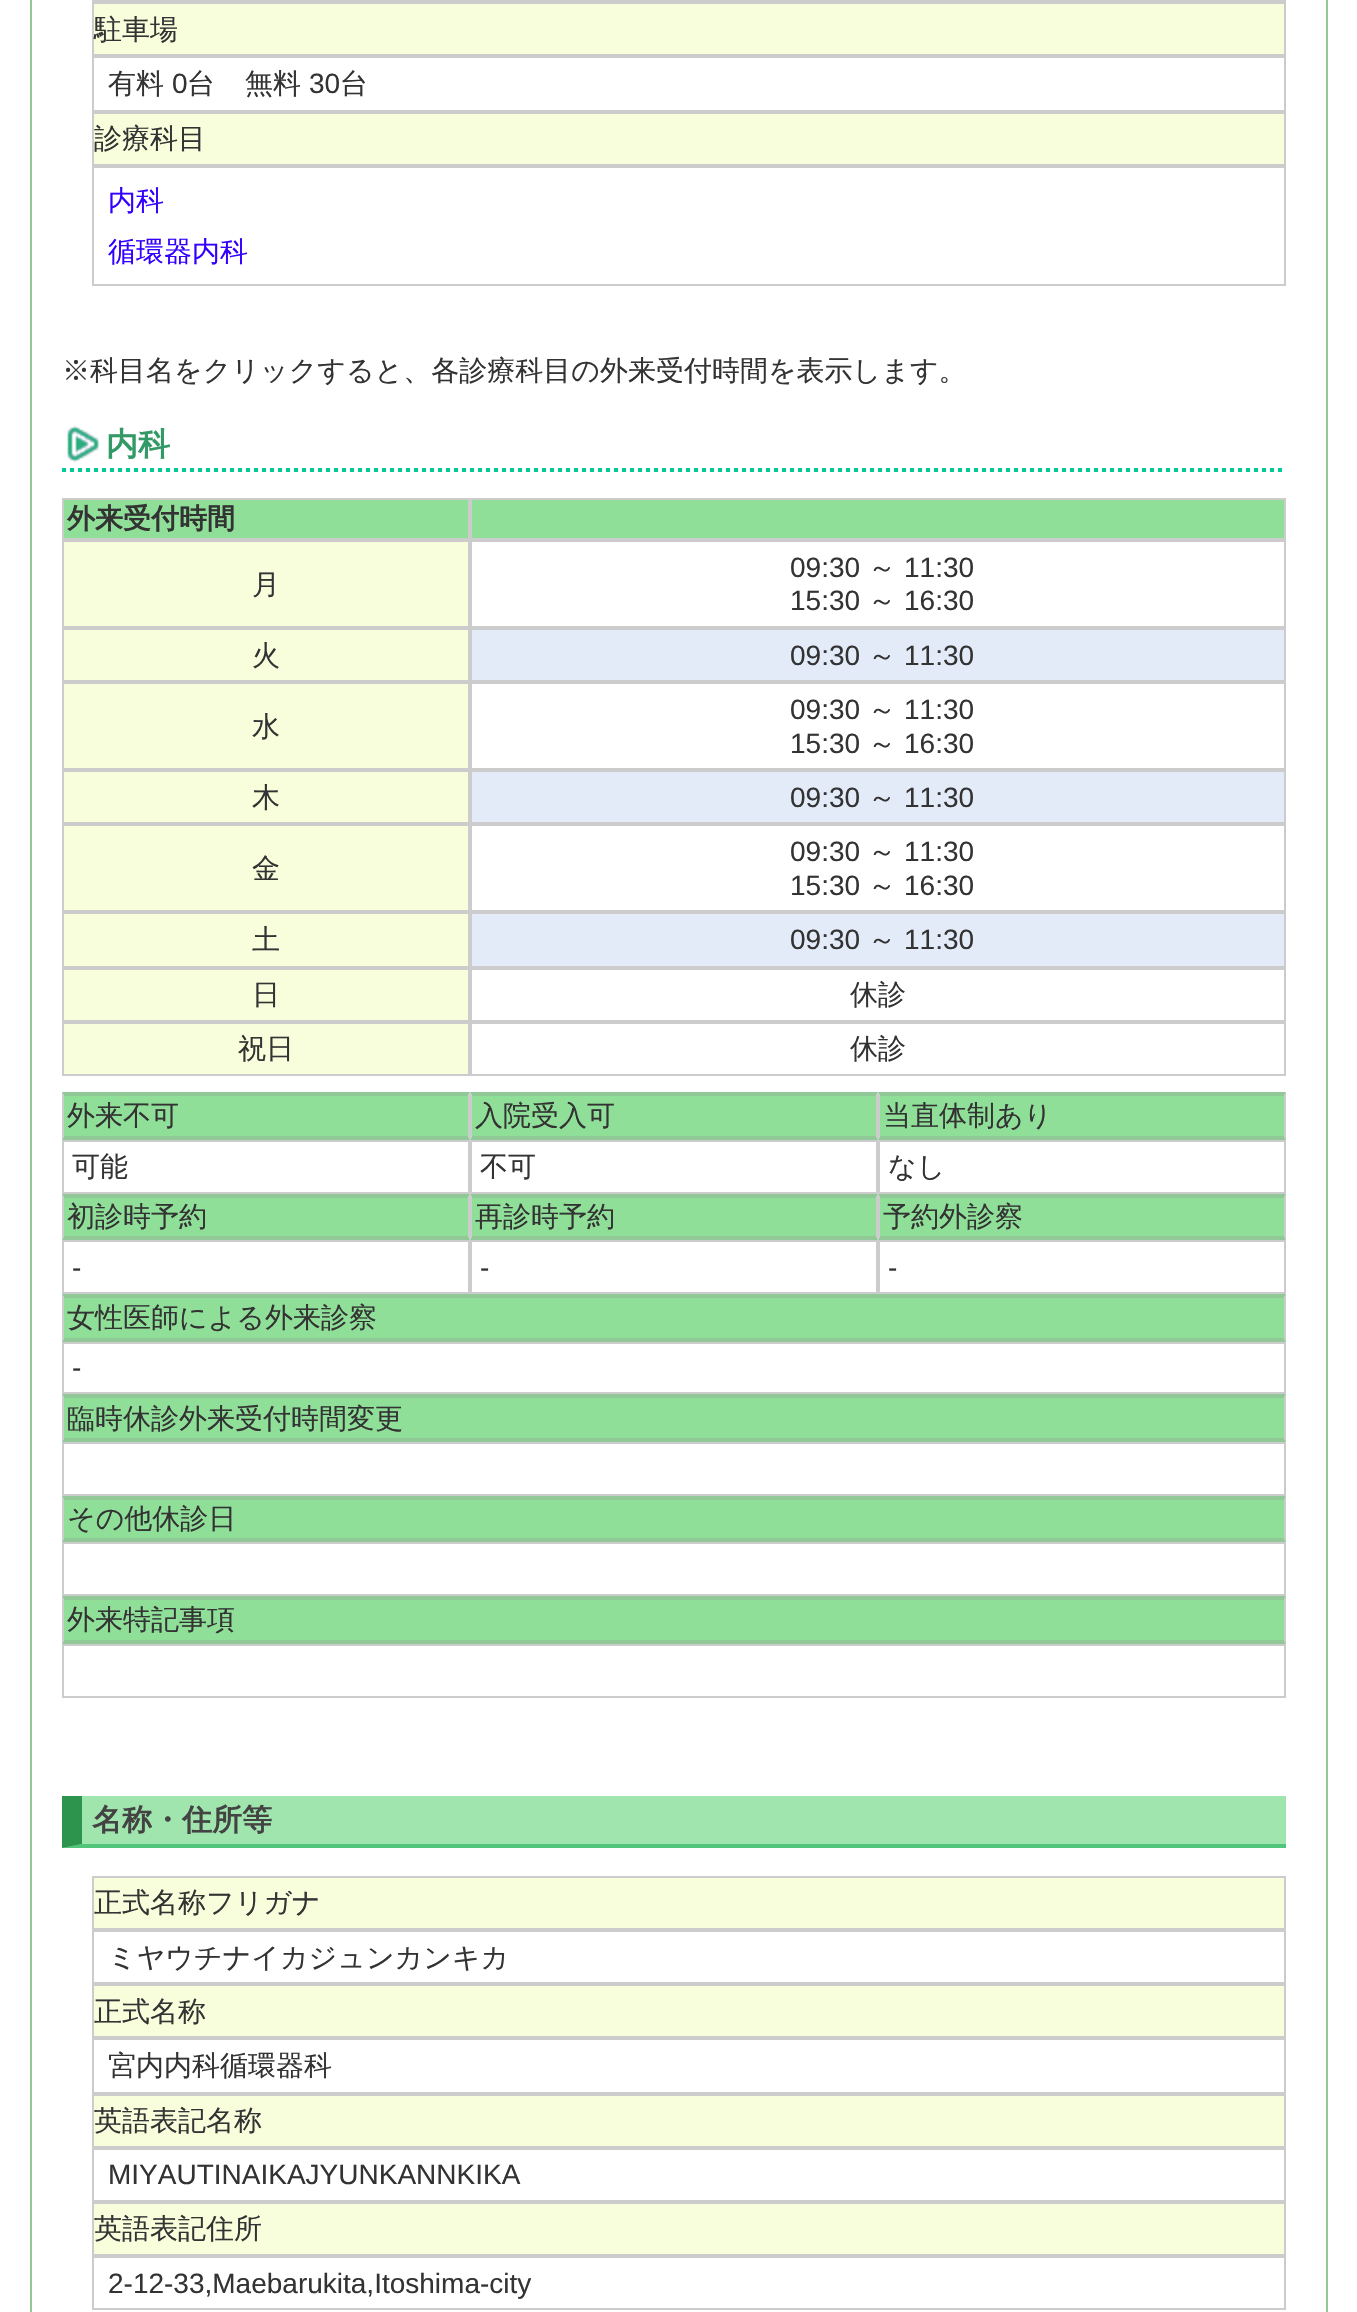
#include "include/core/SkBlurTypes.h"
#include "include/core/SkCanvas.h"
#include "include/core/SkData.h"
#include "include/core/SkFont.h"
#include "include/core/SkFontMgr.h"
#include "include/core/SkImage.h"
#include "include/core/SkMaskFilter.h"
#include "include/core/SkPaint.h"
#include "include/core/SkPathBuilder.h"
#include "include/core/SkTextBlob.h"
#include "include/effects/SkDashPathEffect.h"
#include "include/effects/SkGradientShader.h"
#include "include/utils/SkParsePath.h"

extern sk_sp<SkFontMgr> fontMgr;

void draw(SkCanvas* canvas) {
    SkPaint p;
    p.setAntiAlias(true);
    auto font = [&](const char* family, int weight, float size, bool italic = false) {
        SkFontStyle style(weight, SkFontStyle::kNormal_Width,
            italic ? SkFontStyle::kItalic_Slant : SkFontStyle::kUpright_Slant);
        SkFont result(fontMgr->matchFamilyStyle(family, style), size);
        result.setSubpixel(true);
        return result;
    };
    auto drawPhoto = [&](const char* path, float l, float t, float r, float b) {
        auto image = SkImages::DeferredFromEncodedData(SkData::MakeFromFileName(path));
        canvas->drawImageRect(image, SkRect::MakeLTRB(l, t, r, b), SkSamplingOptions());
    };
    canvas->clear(0xFFFFFFFF);
    p.setStyle(SkPaint::kStroke_Style);
    p.setStrokeWidth(2);
    p.setColor(0xFF90C997);
    canvas->drawRect(SkRect::MakeLTRB(31, -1, 1327, 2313), p);
    p.setColor(0xFFCCCCCC);
    canvas->drawRect(SkRect::MakeLTRB(93, -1, 1285, 1), p);
    p.setStyle(SkPaint::kFill_Style);
    p.setColor(0xFFF8FDDB);
    canvas->drawRect(SkRect::MakeLTRB(93, 3, 1285, 55), p);
    p.setStyle(SkPaint::kStroke_Style);
    p.setColor(0xFFCCCCCC);
    canvas->drawRect(SkRect::MakeLTRB(93, 3, 1285, 55), p);
    auto font1 = font("WenQuanYi Zen Hei", 500, 28);
    p.setStyle(SkPaint::kFill_Style);
    p.setColor(0xFF333333);
    canvas->drawString("駐車場", 94, 39, font1, p);
    p.setStyle(SkPaint::kStroke_Style);
    p.setColor(0xFFCCCCCC);
    canvas->drawRect(SkRect::MakeLTRB(93, 57, 1285, 111), p);
    p.setStyle(SkPaint::kFill_Style);
    p.setColor(0xFF333333);
    canvas->drawString("有料", 108, 93, font1, p);
    auto font2 = font("Liberation Sans", 400, 28);
    canvas->drawString("0", 172, 93, font2, p);
    canvas->drawString("台", 187, 93, font1, p);
    canvas->drawString("無料", 245, 93, font1, p);
    canvas->drawString("30", 309, 93, font2, p);
    canvas->drawString("台", 340, 93, font1, p);
    p.setColor(0xFFF8FDDB);
    canvas->drawRect(SkRect::MakeLTRB(93, 113, 1285, 165), p);
    p.setStyle(SkPaint::kStroke_Style);
    p.setColor(0xFFCCCCCC);
    canvas->drawRect(SkRect::MakeLTRB(93, 113, 1285, 165), p);
    p.setStyle(SkPaint::kFill_Style);
    p.setColor(0xFF333333);
    canvas->drawString("診療科目", 94, 148, font1, p);
    p.setStyle(SkPaint::kStroke_Style);
    p.setColor(0xFFCCCCCC);
    canvas->drawRect(SkRect::MakeLTRB(93, 167, 1285, 285), p);
    p.setStyle(SkPaint::kFill_Style);
    p.setColor(0xFF3300FF);
    canvas->drawString("内科", 108, 210, font1, p);
    canvas->drawString("循環器内科", 108, 261, font1, p);
    p.setColor(0xFF333333);
    canvas->drawString("※科目名をクリックすると、各診療科目の外来受付時間を表示します。", 62, 380, font1, p);
    drawPhoto("media/1.png", 67, 425, 100, 463);
    p.setStyle(SkPaint::kStroke_Style);
    p.setStrokeWidth(4);
    p.setColor(0xFF00CC99);
    p.setPathEffect(SkDashPathEffect::Make({{4, 4}}, 0));
    canvas->drawPath(SkPathBuilder().moveTo(62, 470).lineTo(1286, 470).detach(), p);
    p.setPathEffect(nullptr);
    auto font3 = font("WenQuanYi Zen Hei", 700, 32);
    p.setStyle(SkPaint::kFill_Style);
    p.setColor(0xFF339966);
    canvas->drawString("内科", 106, 455, font3, p);
    p.setColor(0xFF8FDF99);
    canvas->drawRect(SkRect::MakeLTRB(63, 499, 469, 539), p);
    p.setStyle(SkPaint::kStroke_Style);
    p.setStrokeWidth(2);
    p.setColor(0xFFCCCCCC);
    canvas->drawRect(SkRect::MakeLTRB(63, 499, 469, 539), p);
    auto font4 = font("WenQuanYi Zen Hei", 700, 28);
    p.setStyle(SkPaint::kFill_Style);
    p.setColor(0xFF333333);
    canvas->drawString("外来受付時間", 67, 528, font4, p);
    p.setColor(0xFF8FDF99);
    canvas->drawRect(SkRect::MakeLTRB(471, 499, 1285, 539), p);
    p.setStyle(SkPaint::kStroke_Style);
    p.setColor(0xFFCCCCCC);
    canvas->drawRect(SkRect::MakeLTRB(471, 499, 1285, 539), p);
    p.setStyle(SkPaint::kFill_Style);
    p.setColor(0xFFF8FDDB);
    canvas->drawRect(SkRect::MakeLTRB(63, 541, 469, 627), p);
    p.setStyle(SkPaint::kStroke_Style);
    p.setColor(0xFFCCCCCC);
    canvas->drawRect(SkRect::MakeLTRB(63, 541, 469, 627), p);
    p.setStyle(SkPaint::kFill_Style);
    p.setColor(0xFF333333);
    canvas->drawString("月", 252, 594, font1, p);
    p.setStyle(SkPaint::kStroke_Style);
    p.setColor(0xFFCCCCCC);
    canvas->drawRect(SkRect::MakeLTRB(471, 541, 1285, 627), p);
    p.setStyle(SkPaint::kFill_Style);
    p.setColor(0xFF333333);
    canvas->drawString("09:30", 790, 577, font2, p);
    canvas->drawString("～", 868, 577, font1, p);
    canvas->drawString("11:30", 904, 577, font2, p);
    canvas->drawString("15:30", 790, 610, font2, p);
    canvas->drawString("～", 868, 610, font1, p);
    canvas->drawString("16:30", 904, 610, font2, p);
    p.setColor(0xFFF8FDDB);
    canvas->drawRect(SkRect::MakeLTRB(63, 629, 469, 681), p);
    p.setStyle(SkPaint::kStroke_Style);
    p.setColor(0xFFCCCCCC);
    canvas->drawRect(SkRect::MakeLTRB(63, 629, 469, 681), p);
    p.setStyle(SkPaint::kFill_Style);
    p.setColor(0xFF333333);
    canvas->drawString("火", 252, 665, font1, p);
    p.setColor(0xFFE3EBF9);
    canvas->drawRect(SkRect::MakeLTRB(471, 629, 1285, 681), p);
    p.setStyle(SkPaint::kStroke_Style);
    p.setColor(0xFFCCCCCC);
    canvas->drawRect(SkRect::MakeLTRB(471, 629, 1285, 681), p);
    p.setStyle(SkPaint::kFill_Style);
    p.setColor(0xFF333333);
    canvas->drawString("09:30", 790, 665, font2, p);
    canvas->drawString("～", 868, 665, font1, p);
    canvas->drawString("11:30", 904, 665, font2, p);
    p.setColor(0xFFF8FDDB);
    canvas->drawRect(SkRect::MakeLTRB(63, 683, 469, 769), p);
    p.setStyle(SkPaint::kStroke_Style);
    p.setColor(0xFFCCCCCC);
    canvas->drawRect(SkRect::MakeLTRB(63, 683, 469, 769), p);
    p.setStyle(SkPaint::kFill_Style);
    p.setColor(0xFF333333);
    canvas->drawString("水", 252, 736, font1, p);
    p.setStyle(SkPaint::kStroke_Style);
    p.setColor(0xFFCCCCCC);
    canvas->drawRect(SkRect::MakeLTRB(471, 683, 1285, 769), p);
    p.setStyle(SkPaint::kFill_Style);
    p.setColor(0xFF333333);
    canvas->drawString("09:30", 790, 719, font2, p);
    canvas->drawString("～", 868, 719, font1, p);
    canvas->drawString("11:30", 904, 719, font2, p);
    canvas->drawString("15:30", 790, 753, font2, p);
    canvas->drawString("～", 868, 753, font1, p);
    canvas->drawString("16:30", 904, 753, font2, p);
    p.setColor(0xFFF8FDDB);
    canvas->drawRect(SkRect::MakeLTRB(63, 771, 469, 823), p);
    p.setStyle(SkPaint::kStroke_Style);
    p.setColor(0xFFCCCCCC);
    canvas->drawRect(SkRect::MakeLTRB(63, 771, 469, 823), p);
    p.setStyle(SkPaint::kFill_Style);
    p.setColor(0xFF333333);
    canvas->drawString("木", 252, 807, font1, p);
    p.setColor(0xFFE3EBF9);
    canvas->drawRect(SkRect::MakeLTRB(471, 771, 1285, 823), p);
    p.setStyle(SkPaint::kStroke_Style);
    p.setColor(0xFFCCCCCC);
    canvas->drawRect(SkRect::MakeLTRB(471, 771, 1285, 823), p);
    p.setStyle(SkPaint::kFill_Style);
    p.setColor(0xFF333333);
    canvas->drawString("09:30", 790, 807, font2, p);
    canvas->drawString("～", 868, 807, font1, p);
    canvas->drawString("11:30", 904, 807, font2, p);
    p.setColor(0xFFF8FDDB);
    canvas->drawRect(SkRect::MakeLTRB(63, 825, 469, 911), p);
    p.setStyle(SkPaint::kStroke_Style);
    p.setColor(0xFFCCCCCC);
    canvas->drawRect(SkRect::MakeLTRB(63, 825, 469, 911), p);
    p.setStyle(SkPaint::kFill_Style);
    p.setColor(0xFF333333);
    canvas->drawString("金", 252, 878, font1, p);
    p.setStyle(SkPaint::kStroke_Style);
    p.setColor(0xFFCCCCCC);
    canvas->drawRect(SkRect::MakeLTRB(471, 825, 1285, 911), p);
    p.setStyle(SkPaint::kFill_Style);
    p.setColor(0xFF333333);
    canvas->drawString("09:30", 790, 861, font2, p);
    canvas->drawString("～", 868, 861, font1, p);
    canvas->drawString("11:30", 904, 861, font2, p);
    canvas->drawString("15:30", 790, 895, font2, p);
    canvas->drawString("～", 868, 895, font1, p);
    canvas->drawString("16:30", 904, 895, font2, p);
    p.setColor(0xFFF8FDDB);
    canvas->drawRect(SkRect::MakeLTRB(63, 913, 469, 967), p);
    p.setStyle(SkPaint::kStroke_Style);
    p.setColor(0xFFCCCCCC);
    canvas->drawRect(SkRect::MakeLTRB(63, 913, 469, 967), p);
    p.setStyle(SkPaint::kFill_Style);
    p.setColor(0xFF333333);
    canvas->drawString("土", 252, 949, font1, p);
    p.setColor(0xFFE3EBF9);
    canvas->drawRect(SkRect::MakeLTRB(471, 913, 1285, 967), p);
    p.setStyle(SkPaint::kStroke_Style);
    p.setColor(0xFFCCCCCC);
    canvas->drawRect(SkRect::MakeLTRB(471, 913, 1285, 967), p);
    p.setStyle(SkPaint::kFill_Style);
    p.setColor(0xFF333333);
    canvas->drawString("09:30", 790, 949, font2, p);
    canvas->drawString("～", 868, 949, font1, p);
    canvas->drawString("11:30", 904, 949, font2, p);
    p.setColor(0xFFF8FDDB);
    canvas->drawRect(SkRect::MakeLTRB(63, 969, 469, 1021), p);
    p.setStyle(SkPaint::kStroke_Style);
    p.setColor(0xFFCCCCCC);
    canvas->drawRect(SkRect::MakeLTRB(63, 969, 469, 1021), p);
    p.setStyle(SkPaint::kFill_Style);
    p.setColor(0xFF333333);
    canvas->drawString("日", 252, 1004, font1, p);
    p.setStyle(SkPaint::kStroke_Style);
    p.setColor(0xFFCCCCCC);
    canvas->drawRect(SkRect::MakeLTRB(471, 969, 1285, 1021), p);
    p.setStyle(SkPaint::kFill_Style);
    p.setColor(0xFF333333);
    canvas->drawString("休診", 850, 1004, font1, p);
    p.setColor(0xFFF8FDDB);
    canvas->drawRect(SkRect::MakeLTRB(63, 1023, 469, 1075), p);
    p.setStyle(SkPaint::kStroke_Style);
    p.setColor(0xFFCCCCCC);
    canvas->drawRect(SkRect::MakeLTRB(63, 1023, 469, 1075), p);
    p.setStyle(SkPaint::kFill_Style);
    p.setColor(0xFF333333);
    canvas->drawString("祝日", 238, 1058, font1, p);
    p.setStyle(SkPaint::kStroke_Style);
    p.setColor(0xFFCCCCCC);
    canvas->drawRect(SkRect::MakeLTRB(471, 1023, 1285, 1075), p);
    p.setStyle(SkPaint::kFill_Style);
    p.setColor(0xFF333333);
    canvas->drawString("休診", 850, 1058, font1, p);
    p.setColor(0xFF8FDF99);
    canvas->drawRect(SkRect::MakeLTRB(64, 1096, 468, 1136), p);
    p.setColor(0xFF90C997);
    canvas->drawPath(SkPathBuilder().moveTo(62, 1092).lineTo(470, 1092).lineTo(468, 1096).lineTo(64, 1096).close().detach(), p);
    p.setColor(0xFFCCCCCC);
    canvas->drawPath(SkPathBuilder().moveTo(470, 1092).lineTo(470, 1140).lineTo(468, 1136).lineTo(468, 1096).close().detach(), p);
    p.setColor(0xFF90C997);
    canvas->drawPath(SkPathBuilder().moveTo(470, 1140).lineTo(62, 1140).lineTo(64, 1136).lineTo(468, 1136).close().detach(), p);
    p.setColor(0xFFCCCCCC);
    canvas->drawPath(SkPathBuilder().moveTo(62, 1140).lineTo(62, 1092).lineTo(64, 1096).lineTo(64, 1136).close().detach(), p);
    p.setColor(0xFF333333);
    canvas->drawString("外来不可", 67, 1125, font1, p);
    p.setColor(0xFF8FDF99);
    canvas->drawRect(SkRect::MakeLTRB(472, 1096, 876, 1136), p);
    p.setColor(0xFF90C997);
    canvas->drawPath(SkPathBuilder().moveTo(470, 1092).lineTo(878, 1092).lineTo(876, 1096).lineTo(472, 1096).close().detach(), p);
    p.setColor(0xFFCCCCCC);
    canvas->drawPath(SkPathBuilder().moveTo(878, 1092).lineTo(878, 1140).lineTo(876, 1136).lineTo(876, 1096).close().detach(), p);
    p.setColor(0xFF90C997);
    canvas->drawPath(SkPathBuilder().moveTo(878, 1140).lineTo(470, 1140).lineTo(472, 1136).lineTo(876, 1136).close().detach(), p);
    p.setColor(0xFFCCCCCC);
    canvas->drawPath(SkPathBuilder().moveTo(470, 1140).lineTo(470, 1092).lineTo(472, 1096).lineTo(472, 1136).close().detach(), p);
    p.setColor(0xFF333333);
    canvas->drawString("入院受入可", 475, 1125, font1, p);
    p.setColor(0xFF8FDF99);
    canvas->drawRect(SkRect::MakeLTRB(880, 1096, 1284, 1136), p);
    p.setColor(0xFF90C997);
    canvas->drawPath(SkPathBuilder().moveTo(878, 1092).lineTo(1286, 1092).lineTo(1284, 1096).lineTo(880, 1096).close().detach(), p);
    p.setColor(0xFFCCCCCC);
    canvas->drawPath(SkPathBuilder().moveTo(1286, 1092).lineTo(1286, 1140).lineTo(1284, 1136).lineTo(1284, 1096).close().detach(), p);
    p.setColor(0xFF90C997);
    canvas->drawPath(SkPathBuilder().moveTo(1286, 1140).lineTo(878, 1140).lineTo(880, 1136).lineTo(1284, 1136).close().detach(), p);
    p.setColor(0xFFCCCCCC);
    canvas->drawPath(SkPathBuilder().moveTo(878, 1140).lineTo(878, 1092).lineTo(880, 1096).lineTo(880, 1136).close().detach(), p);
    p.setColor(0xFF333333);
    canvas->drawString("当直体制あり", 883, 1125, font1, p);
    p.setStyle(SkPaint::kStroke_Style);
    p.setColor(0xFFCCCCCC);
    canvas->drawRect(SkRect::MakeLTRB(63, 1141, 469, 1193), p);
    p.setStyle(SkPaint::kFill_Style);
    p.setColor(0xFF333333);
    canvas->drawString("可能", 72, 1176, font1, p);
    p.setStyle(SkPaint::kStroke_Style);
    p.setColor(0xFFCCCCCC);
    canvas->drawRect(SkRect::MakeLTRB(471, 1141, 877, 1193), p);
    p.setStyle(SkPaint::kFill_Style);
    p.setColor(0xFF333333);
    canvas->drawString("不可", 480, 1176, font1, p);
    p.setStyle(SkPaint::kStroke_Style);
    p.setColor(0xFFCCCCCC);
    canvas->drawRect(SkRect::MakeLTRB(879, 1141, 1285, 1193), p);
    p.setStyle(SkPaint::kFill_Style);
    p.setColor(0xFF333333);
    canvas->drawString("なし", 888, 1176, font1, p);
    p.setColor(0xFF8FDF99);
    canvas->drawRect(SkRect::MakeLTRB(64, 1198, 468, 1236), p);
    p.setColor(0xFF90C997);
    canvas->drawPath(SkPathBuilder().moveTo(62, 1194).lineTo(470, 1194).lineTo(468, 1198).lineTo(64, 1198).close().detach(), p);
    p.setColor(0xFFCCCCCC);
    canvas->drawPath(SkPathBuilder().moveTo(470, 1194).lineTo(470, 1240).lineTo(468, 1236).lineTo(468, 1198).close().detach(), p);
    p.setColor(0xFF90C997);
    canvas->drawPath(SkPathBuilder().moveTo(470, 1240).lineTo(62, 1240).lineTo(64, 1236).lineTo(468, 1236).close().detach(), p);
    p.setColor(0xFFCCCCCC);
    canvas->drawPath(SkPathBuilder().moveTo(62, 1240).lineTo(62, 1194).lineTo(64, 1198).lineTo(64, 1236).close().detach(), p);
    p.setColor(0xFF333333);
    canvas->drawString("初診時予約", 67, 1226, font1, p);
    p.setColor(0xFF8FDF99);
    canvas->drawRect(SkRect::MakeLTRB(472, 1198, 876, 1236), p);
    p.setColor(0xFF90C997);
    canvas->drawPath(SkPathBuilder().moveTo(470, 1194).lineTo(878, 1194).lineTo(876, 1198).lineTo(472, 1198).close().detach(), p);
    p.setColor(0xFFCCCCCC);
    canvas->drawPath(SkPathBuilder().moveTo(878, 1194).lineTo(878, 1240).lineTo(876, 1236).lineTo(876, 1198).close().detach(), p);
    p.setColor(0xFF90C997);
    canvas->drawPath(SkPathBuilder().moveTo(878, 1240).lineTo(470, 1240).lineTo(472, 1236).lineTo(876, 1236).close().detach(), p);
    p.setColor(0xFFCCCCCC);
    canvas->drawPath(SkPathBuilder().moveTo(470, 1240).lineTo(470, 1194).lineTo(472, 1198).lineTo(472, 1236).close().detach(), p);
    p.setColor(0xFF333333);
    canvas->drawString("再診時予約", 475, 1226, font1, p);
    p.setColor(0xFF8FDF99);
    canvas->drawRect(SkRect::MakeLTRB(880, 1198, 1284, 1236), p);
    p.setColor(0xFF90C997);
    canvas->drawPath(SkPathBuilder().moveTo(878, 1194).lineTo(1286, 1194).lineTo(1284, 1198).lineTo(880, 1198).close().detach(), p);
    p.setColor(0xFFCCCCCC);
    canvas->drawPath(SkPathBuilder().moveTo(1286, 1194).lineTo(1286, 1240).lineTo(1284, 1236).lineTo(1284, 1198).close().detach(), p);
    p.setColor(0xFF90C997);
    canvas->drawPath(SkPathBuilder().moveTo(1286, 1240).lineTo(878, 1240).lineTo(880, 1236).lineTo(1284, 1236).close().detach(), p);
    p.setColor(0xFFCCCCCC);
    canvas->drawPath(SkPathBuilder().moveTo(878, 1240).lineTo(878, 1194).lineTo(880, 1198).lineTo(880, 1236).close().detach(), p);
    p.setColor(0xFF333333);
    canvas->drawString("予約外診察", 883, 1226, font1, p);
    p.setStyle(SkPaint::kStroke_Style);
    p.setColor(0xFFCCCCCC);
    canvas->drawRect(SkRect::MakeLTRB(63, 1241, 469, 1293), p);
    p.setStyle(SkPaint::kFill_Style);
    p.setColor(0xFF333333);
    canvas->drawString("-", 72, 1277, font2, p);
    p.setStyle(SkPaint::kStroke_Style);
    p.setColor(0xFFCCCCCC);
    canvas->drawRect(SkRect::MakeLTRB(471, 1241, 877, 1293), p);
    p.setStyle(SkPaint::kFill_Style);
    p.setColor(0xFF333333);
    canvas->drawString("-", 480, 1277, font2, p);
    p.setStyle(SkPaint::kStroke_Style);
    p.setColor(0xFFCCCCCC);
    canvas->drawRect(SkRect::MakeLTRB(879, 1241, 1285, 1293), p);
    p.setStyle(SkPaint::kFill_Style);
    p.setColor(0xFF333333);
    canvas->drawString("-", 888, 1277, font2, p);
    p.setColor(0xFF8FDF99);
    canvas->drawRect(SkRect::MakeLTRB(64, 1298, 1284, 1338), p);
    p.setColor(0xFF90C997);
    canvas->drawPath(SkPathBuilder().moveTo(62, 1294).lineTo(1286, 1294).lineTo(1284, 1298).lineTo(64, 1298).close().detach(), p);
    p.setColor(0xFFCCCCCC);
    canvas->drawPath(SkPathBuilder().moveTo(1286, 1294).lineTo(1286, 1342).lineTo(1284, 1338).lineTo(1284, 1298).close().detach(), p);
    p.setColor(0xFF90C997);
    canvas->drawPath(SkPathBuilder().moveTo(1286, 1342).lineTo(62, 1342).lineTo(64, 1338).lineTo(1284, 1338).close().detach(), p);
    p.setColor(0xFFCCCCCC);
    canvas->drawPath(SkPathBuilder().moveTo(62, 1342).lineTo(62, 1294).lineTo(64, 1298).lineTo(64, 1338).close().detach(), p);
    p.setColor(0xFF333333);
    canvas->drawString("女性医師による外来診察", 67, 1327, font1, p);
    p.setStyle(SkPaint::kStroke_Style);
    p.setColor(0xFFCCCCCC);
    canvas->drawRect(SkRect::MakeLTRB(63, 1343, 1285, 1393), p);
    p.setStyle(SkPaint::kFill_Style);
    p.setColor(0xFF333333);
    canvas->drawString("-", 72, 1377, font2, p);
    p.setColor(0xFF8FDF99);
    canvas->drawRect(SkRect::MakeLTRB(64, 1398, 1284, 1438), p);
    p.setColor(0xFF90C997);
    canvas->drawPath(SkPathBuilder().moveTo(62, 1394).lineTo(1286, 1394).lineTo(1284, 1398).lineTo(64, 1398).close().detach(), p);
    p.setColor(0xFFCCCCCC);
    canvas->drawPath(SkPathBuilder().moveTo(1286, 1394).lineTo(1286, 1442).lineTo(1284, 1438).lineTo(1284, 1398).close().detach(), p);
    p.setColor(0xFF90C997);
    canvas->drawPath(SkPathBuilder().moveTo(1286, 1442).lineTo(62, 1442).lineTo(64, 1438).lineTo(1284, 1438).close().detach(), p);
    p.setColor(0xFFCCCCCC);
    canvas->drawPath(SkPathBuilder().moveTo(62, 1442).lineTo(62, 1394).lineTo(64, 1398).lineTo(64, 1438).close().detach(), p);
    p.setColor(0xFF333333);
    canvas->drawString("臨時休診外来受付時間変更", 67, 1428, font1, p);
    p.setStyle(SkPaint::kStroke_Style);
    p.setColor(0xFFCCCCCC);
    canvas->drawRect(SkRect::MakeLTRB(63, 1443, 1285, 1495), p);
    p.setStyle(SkPaint::kFill_Style);
    p.setColor(0xFF8FDF99);
    canvas->drawRect(SkRect::MakeLTRB(64, 1500, 1284, 1538), p);
    p.setColor(0xFF90C997);
    canvas->drawPath(SkPathBuilder().moveTo(62, 1496).lineTo(1286, 1496).lineTo(1284, 1500).lineTo(64, 1500).close().detach(), p);
    p.setColor(0xFFCCCCCC);
    canvas->drawPath(SkPathBuilder().moveTo(1286, 1496).lineTo(1286, 1542).lineTo(1284, 1538).lineTo(1284, 1500).close().detach(), p);
    p.setColor(0xFF90C997);
    canvas->drawPath(SkPathBuilder().moveTo(1286, 1542).lineTo(62, 1542).lineTo(64, 1538).lineTo(1284, 1538).close().detach(), p);
    p.setColor(0xFFCCCCCC);
    canvas->drawPath(SkPathBuilder().moveTo(62, 1542).lineTo(62, 1496).lineTo(64, 1500).lineTo(64, 1538).close().detach(), p);
    p.setColor(0xFF333333);
    canvas->drawString("その他休診日", 67, 1528, font1, p);
    p.setStyle(SkPaint::kStroke_Style);
    p.setColor(0xFFCCCCCC);
    canvas->drawRect(SkRect::MakeLTRB(63, 1543, 1285, 1595), p);
    p.setStyle(SkPaint::kFill_Style);
    p.setColor(0xFF8FDF99);
    canvas->drawRect(SkRect::MakeLTRB(64, 1600, 1284, 1640), p);
    p.setColor(0xFF90C997);
    canvas->drawPath(SkPathBuilder().moveTo(62, 1596).lineTo(1286, 1596).lineTo(1284, 1600).lineTo(64, 1600).close().detach(), p);
    p.setColor(0xFFCCCCCC);
    canvas->drawPath(SkPathBuilder().moveTo(1286, 1596).lineTo(1286, 1644).lineTo(1284, 1640).lineTo(1284, 1600).close().detach(), p);
    p.setColor(0xFF90C997);
    canvas->drawPath(SkPathBuilder().moveTo(1286, 1644).lineTo(62, 1644).lineTo(64, 1640).lineTo(1284, 1640).close().detach(), p);
    p.setColor(0xFFCCCCCC);
    canvas->drawPath(SkPathBuilder().moveTo(62, 1644).lineTo(62, 1596).lineTo(64, 1600).lineTo(64, 1640).close().detach(), p);
    p.setColor(0xFF333333);
    canvas->drawString("外来特記事項", 67, 1629, font1, p);
    p.setStyle(SkPaint::kStroke_Style);
    p.setColor(0xFFCCCCCC);
    canvas->drawRect(SkRect::MakeLTRB(63, 1645, 1285, 1697), p);
    p.setStyle(SkPaint::kFill_Style);
    p.setColor(0xFFA0E5AD);
    canvas->drawRect(SkRect::MakeLTRB(62, 1796, 1286, 1848), p);
    p.setColor(0xFF51C579);
    canvas->drawPath(SkPathBuilder().moveTo(1286, 1848).lineTo(62, 1848).lineTo(82, 1844).lineTo(1286, 1844).close().detach(), p);
    p.setColor(0xFF2C944C);
    canvas->drawPath(SkPathBuilder().moveTo(62, 1848).lineTo(62, 1796).lineTo(82, 1796).lineTo(82, 1844).close().detach(), p);
    auto font5 = font("WenQuanYi Zen Hei", 700, 30);
    p.setColor(0xFF424342);
    canvas->drawString("名称・住所等", 92, 1830, font5, p);
    p.setColor(0xFFF8FDDB);
    canvas->drawRect(SkRect::MakeLTRB(93, 1877, 1285, 1929), p);
    p.setStyle(SkPaint::kStroke_Style);
    p.setColor(0xFFCCCCCC);
    canvas->drawRect(SkRect::MakeLTRB(93, 1877, 1285, 1929), p);
    p.setStyle(SkPaint::kFill_Style);
    p.setColor(0xFF333333);
    canvas->drawString("正式名称フリガナ", 94, 1912, font1, p);
    p.setStyle(SkPaint::kStroke_Style);
    p.setColor(0xFFCCCCCC);
    canvas->drawRect(SkRect::MakeLTRB(93, 1931, 1285, 1983), p);
    p.setStyle(SkPaint::kFill_Style);
    p.setColor(0xFF333333);
    canvas->drawString("ミヤウチナイカジュンカンキカ", 108, 1967, font1, p);
    p.setColor(0xFFF8FDDB);
    canvas->drawRect(SkRect::MakeLTRB(93, 1985, 1285, 2037), p);
    p.setStyle(SkPaint::kStroke_Style);
    p.setColor(0xFFCCCCCC);
    canvas->drawRect(SkRect::MakeLTRB(93, 1985, 1285, 2037), p);
    p.setStyle(SkPaint::kFill_Style);
    p.setColor(0xFF333333);
    canvas->drawString("正式名称", 94, 2021, font1, p);
    p.setStyle(SkPaint::kStroke_Style);
    p.setColor(0xFFCCCCCC);
    canvas->drawRect(SkRect::MakeLTRB(93, 2039, 1285, 2093), p);
    p.setStyle(SkPaint::kFill_Style);
    p.setColor(0xFF333333);
    canvas->drawString("宮内内科循環器科", 108, 2075, font1, p);
    p.setColor(0xFFF8FDDB);
    canvas->drawRect(SkRect::MakeLTRB(93, 2095, 1285, 2147), p);
    p.setStyle(SkPaint::kStroke_Style);
    p.setColor(0xFFCCCCCC);
    canvas->drawRect(SkRect::MakeLTRB(93, 2095, 1285, 2147), p);
    p.setStyle(SkPaint::kFill_Style);
    p.setColor(0xFF333333);
    canvas->drawString("英語表記名称", 94, 2130, font1, p);
    p.setStyle(SkPaint::kStroke_Style);
    p.setColor(0xFFCCCCCC);
    canvas->drawRect(SkRect::MakeLTRB(93, 2149, 1285, 2201), p);
    p.setStyle(SkPaint::kFill_Style);
    p.setColor(0xFF333333);
    canvas->drawString("MIYAUTINAIKAJYUNKANNKIKA", 108, 2184, font2, p);
    p.setColor(0xFFF8FDDB);
    canvas->drawRect(SkRect::MakeLTRB(93, 2203, 1285, 2255), p);
    p.setStyle(SkPaint::kStroke_Style);
    p.setColor(0xFFCCCCCC);
    canvas->drawRect(SkRect::MakeLTRB(93, 2203, 1285, 2255), p);
    p.setStyle(SkPaint::kFill_Style);
    p.setColor(0xFF333333);
    canvas->drawString("英語表記住所", 94, 2238, font1, p);
    p.setStyle(SkPaint::kStroke_Style);
    p.setColor(0xFFCCCCCC);
    canvas->drawRect(SkRect::MakeLTRB(93, 2257, 1285, 2309), p);
    p.setStyle(SkPaint::kFill_Style);
    p.setColor(0xFF333333);
    canvas->drawString("2-12-33,Maebarukita,Itoshima-city", 108, 2293, font2, p);
}
